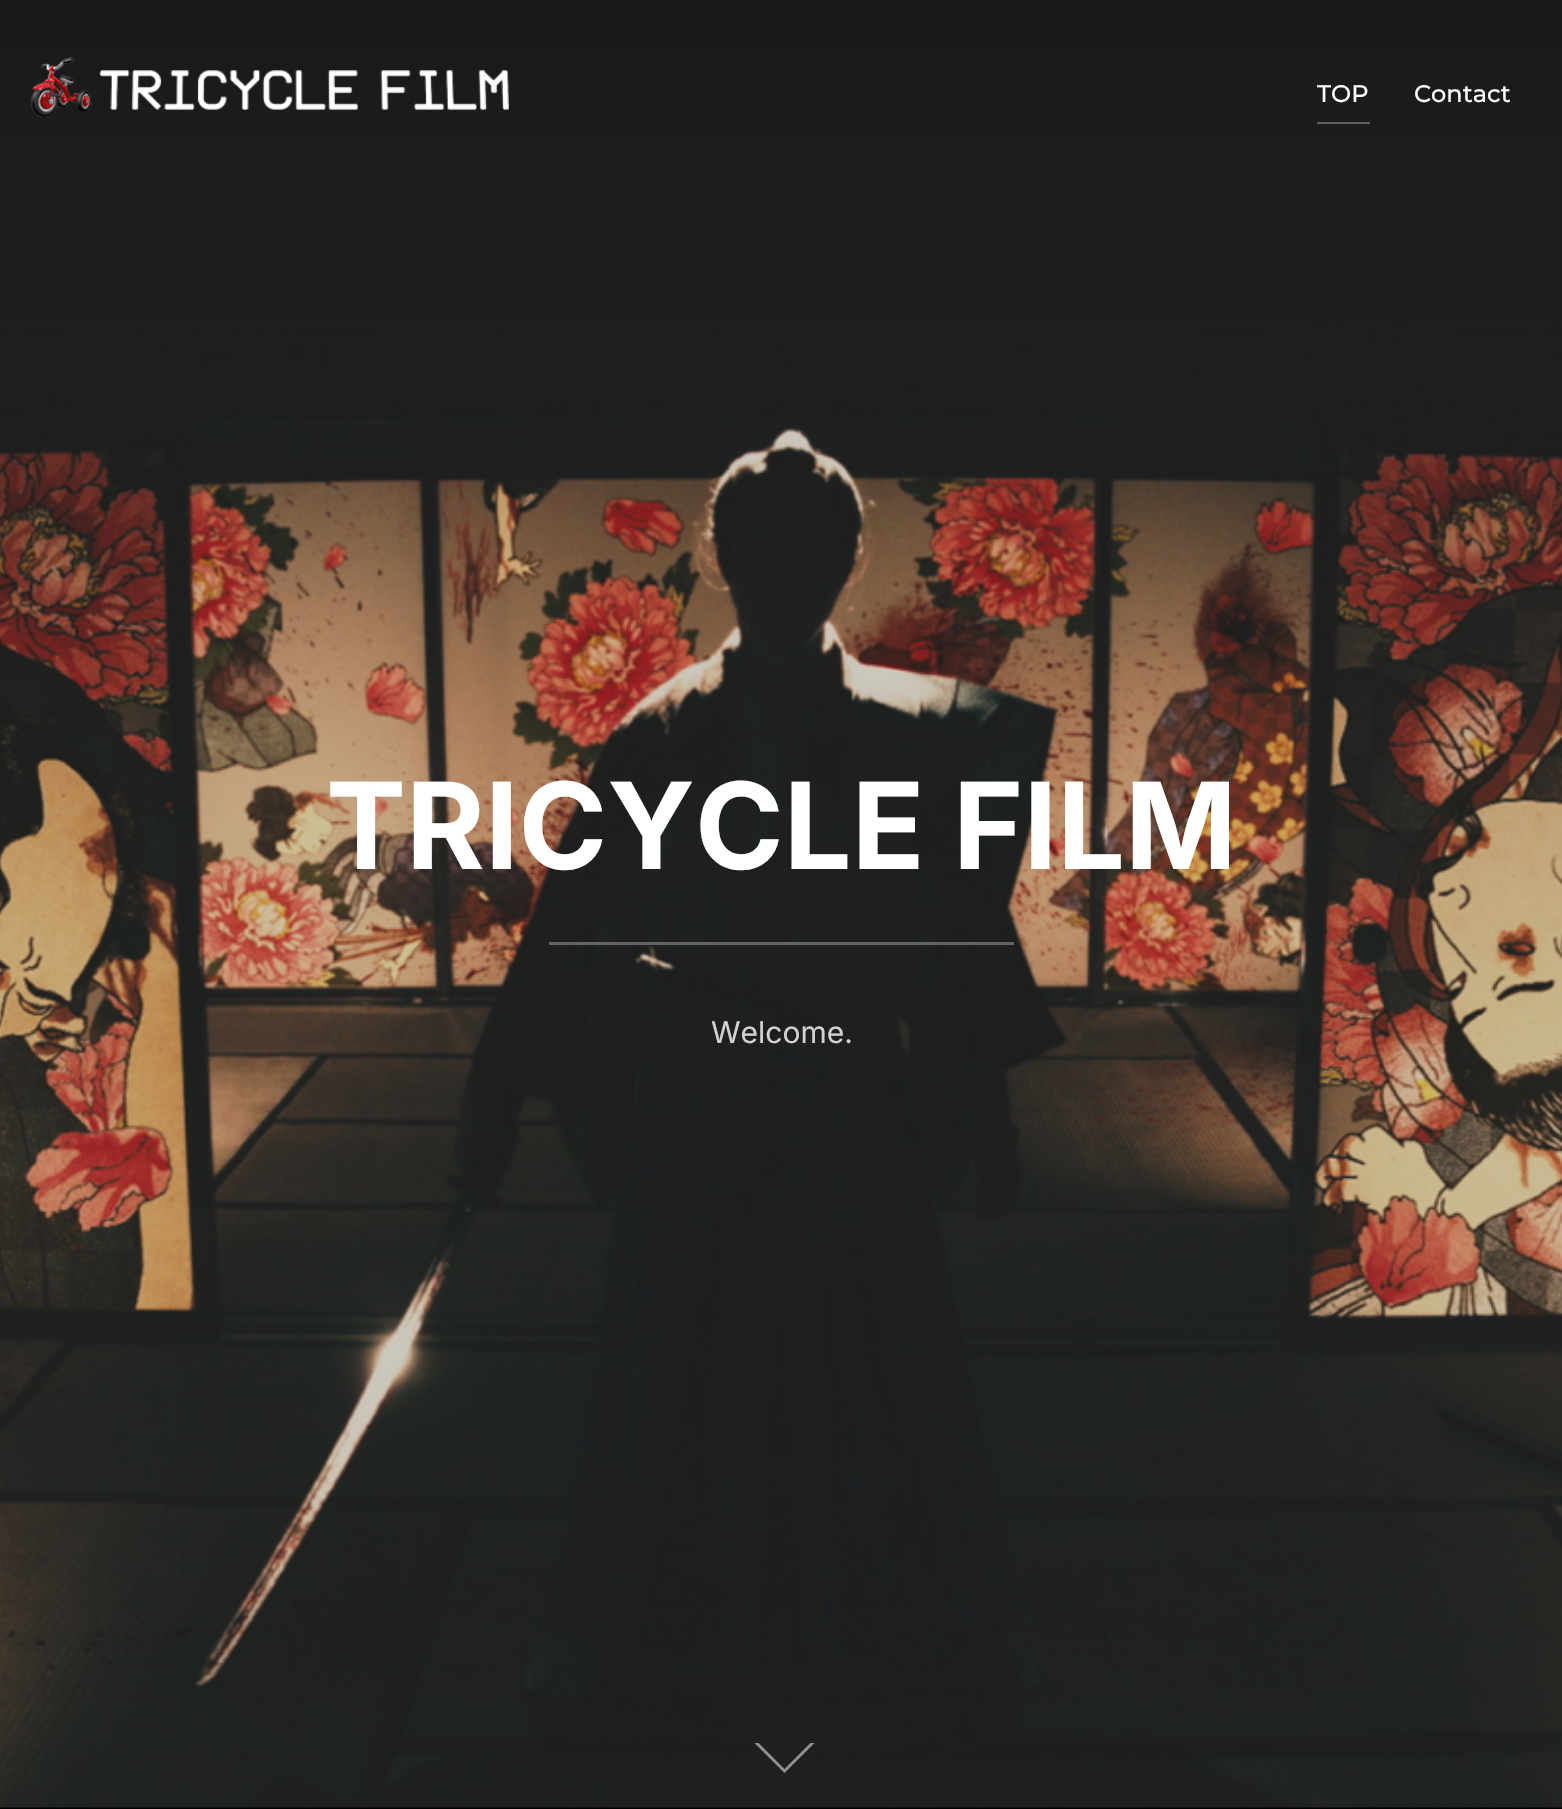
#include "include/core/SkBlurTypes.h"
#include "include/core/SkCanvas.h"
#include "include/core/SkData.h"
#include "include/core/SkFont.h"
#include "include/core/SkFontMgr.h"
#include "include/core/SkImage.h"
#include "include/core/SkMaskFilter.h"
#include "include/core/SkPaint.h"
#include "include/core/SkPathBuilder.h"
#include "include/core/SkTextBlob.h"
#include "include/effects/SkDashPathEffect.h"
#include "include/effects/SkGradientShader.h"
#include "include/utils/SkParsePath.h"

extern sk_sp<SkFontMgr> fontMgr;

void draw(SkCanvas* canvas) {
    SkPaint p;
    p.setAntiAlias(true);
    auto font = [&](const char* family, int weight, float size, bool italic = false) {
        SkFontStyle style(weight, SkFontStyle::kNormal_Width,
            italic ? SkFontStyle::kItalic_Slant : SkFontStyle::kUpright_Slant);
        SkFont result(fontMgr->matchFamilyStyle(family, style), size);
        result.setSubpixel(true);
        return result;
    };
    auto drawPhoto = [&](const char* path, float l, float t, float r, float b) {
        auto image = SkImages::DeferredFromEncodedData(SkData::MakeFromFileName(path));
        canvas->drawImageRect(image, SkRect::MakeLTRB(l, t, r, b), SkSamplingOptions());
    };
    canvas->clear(0xFF000000);
    {
        const SkColor colors[] = {0xFF171918, 0xFF1D1F1E};
        const float stops[] = {0.01f, 1};
        const SkPoint ends[] = {{782, 0}, {782, 189}};
        p.setShader(SkGradientShader::MakeLinear(ends, colors, stops, 2, SkTileMode::kClamp));
        p.setAlpha(255);
    }
    canvas->drawRect(SkRect::MakeLTRB(0, 0, 1562, 189), p);
    drawPhoto("media/1.png", 31, 57, 509, 117);
    p.setShader(nullptr);
    p.setColor(0xFF5F6160);
    canvas->drawRect(SkRect::MakeLTRB(1317, 122, 1370, 124), p);
    auto font1 = font("Montserrat", 500, 24);
    p.setColor(0xFFFFFFFF);
    canvas->drawString("TOP", 1317, 102, font1, p);
    canvas->drawString("Contact", 1414, 102, font1, p);
    drawPhoto("media/2.png", 0, 189, 1562, 1808);
    auto font2 = font("Inter", 700, 120);
    canvas->drawString("TRICYCLE FILM", 326, 869, font2, p);
    p.setColor(0x66C9C9C9);
    canvas->drawRect(SkRect::MakeLTRB(549, 942, 1014, 945), p);
    auto font3 = font("Inter", 400, 30);
    p.setColor(0xFFD2D2D2);
    canvas->drawString("Welcome.", 711, 1043, font3, p);
    canvas->save();
    canvas->clipRect(SkRect::MakeLTRB(740, 1743, 824, 1779));
    p.setStyle(SkPaint::kStroke_Style);
    p.setStrokeWidth(3);
    p.setColor(0xFF8E8F8F);
    canvas->drawPath(SkPathBuilder().moveTo(784.5f, 1712).lineTo(814, 1741.5f).lineTo(784.5f, 1771).lineTo(755, 1741.5f).close().detach(), p);
    canvas->restore();
}
